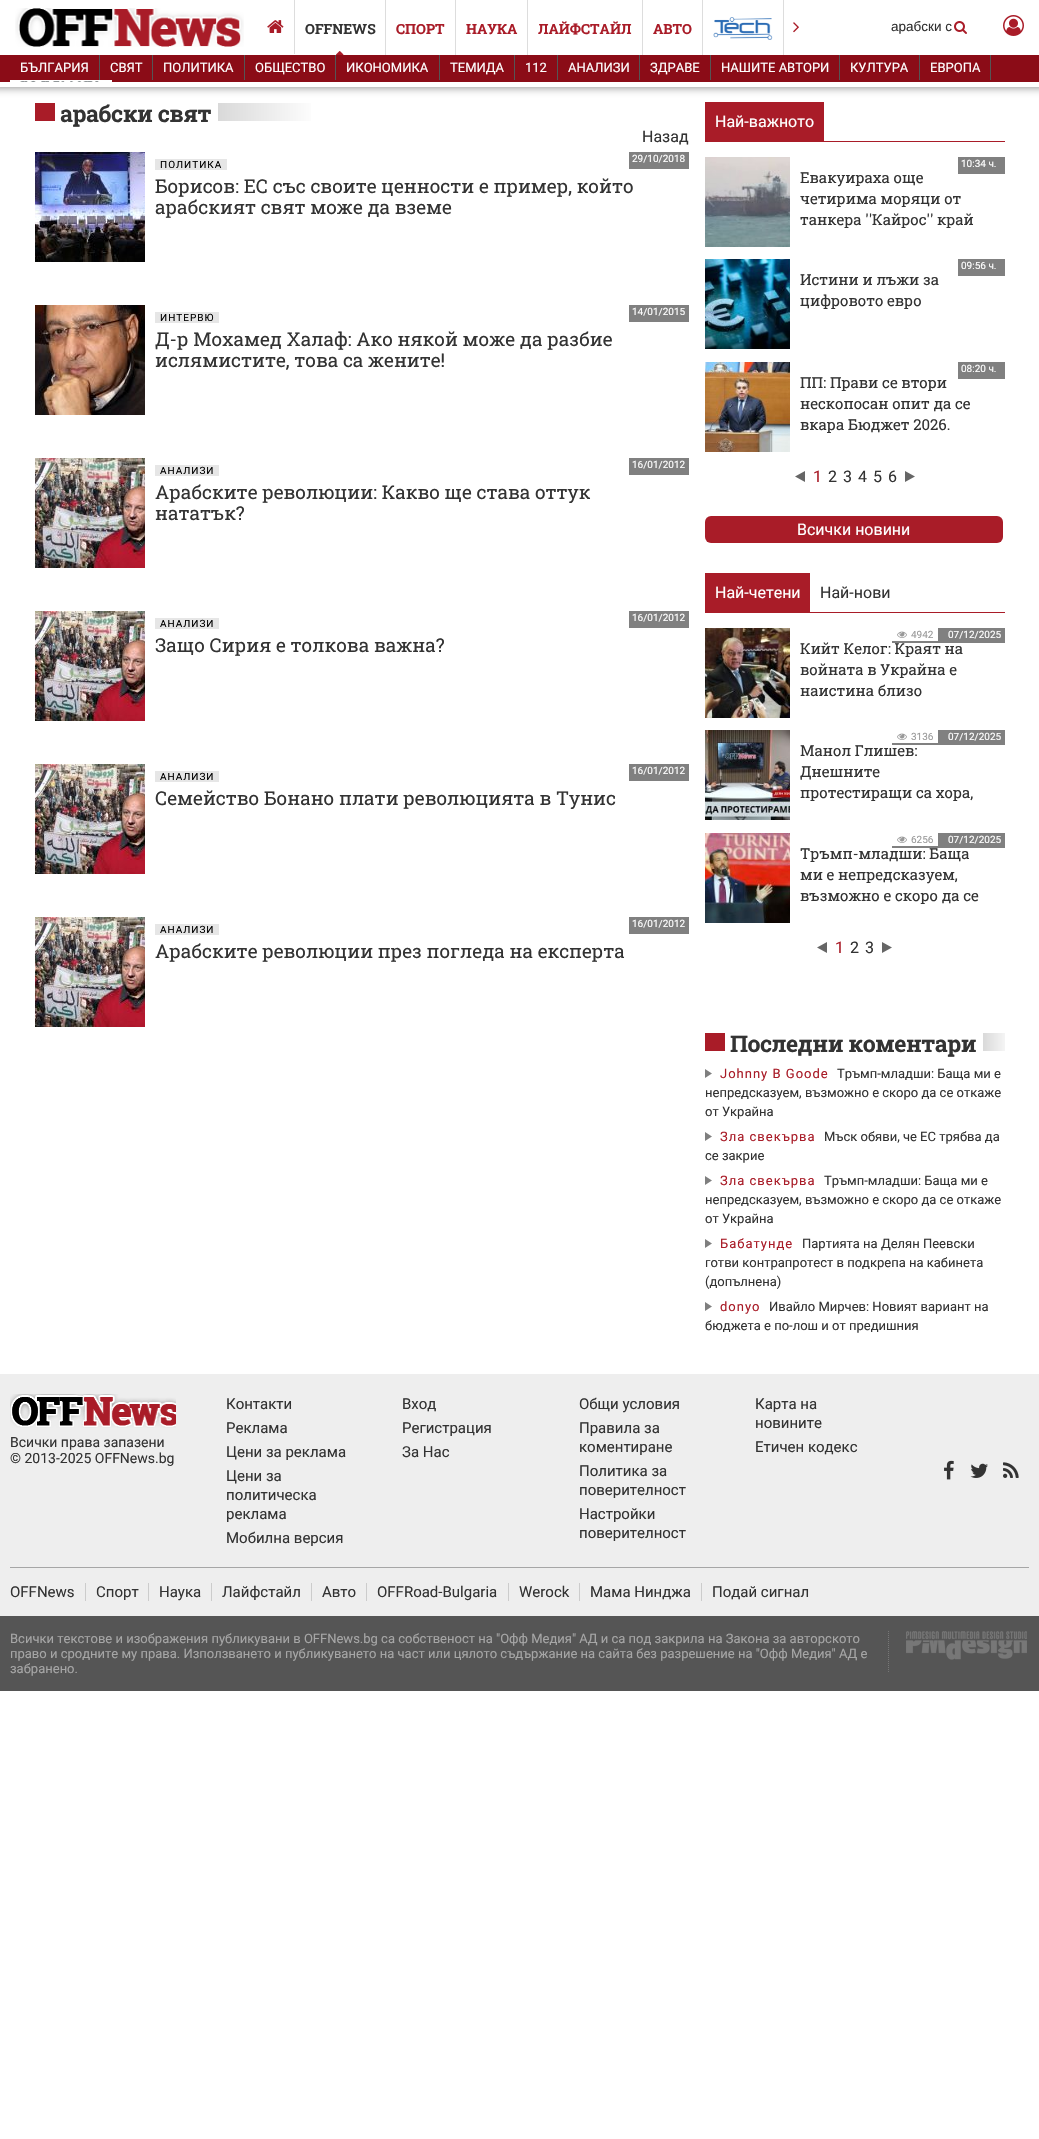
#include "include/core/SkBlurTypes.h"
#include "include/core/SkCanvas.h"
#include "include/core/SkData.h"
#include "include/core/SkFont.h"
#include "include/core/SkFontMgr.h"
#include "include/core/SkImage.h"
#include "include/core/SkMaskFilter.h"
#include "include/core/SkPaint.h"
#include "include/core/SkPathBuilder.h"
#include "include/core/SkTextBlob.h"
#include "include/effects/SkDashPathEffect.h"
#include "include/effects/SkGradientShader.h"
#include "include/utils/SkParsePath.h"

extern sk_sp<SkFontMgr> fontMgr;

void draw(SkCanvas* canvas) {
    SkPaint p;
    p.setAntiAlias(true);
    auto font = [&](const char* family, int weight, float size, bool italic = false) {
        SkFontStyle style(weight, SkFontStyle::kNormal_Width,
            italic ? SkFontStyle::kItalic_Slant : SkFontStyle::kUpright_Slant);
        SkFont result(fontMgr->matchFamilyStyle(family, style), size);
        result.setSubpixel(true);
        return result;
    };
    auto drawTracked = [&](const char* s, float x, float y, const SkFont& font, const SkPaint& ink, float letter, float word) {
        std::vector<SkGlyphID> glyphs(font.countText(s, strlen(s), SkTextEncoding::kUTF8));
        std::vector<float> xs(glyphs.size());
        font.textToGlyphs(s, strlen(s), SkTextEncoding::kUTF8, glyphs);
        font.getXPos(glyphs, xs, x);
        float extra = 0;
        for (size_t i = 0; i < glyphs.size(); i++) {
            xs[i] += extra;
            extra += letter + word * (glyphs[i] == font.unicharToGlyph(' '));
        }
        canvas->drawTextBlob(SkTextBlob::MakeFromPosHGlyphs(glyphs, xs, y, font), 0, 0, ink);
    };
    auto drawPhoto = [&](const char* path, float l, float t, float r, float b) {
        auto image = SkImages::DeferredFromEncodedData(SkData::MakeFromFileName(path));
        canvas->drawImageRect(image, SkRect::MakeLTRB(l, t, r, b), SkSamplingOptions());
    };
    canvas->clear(0xFFFFFFFF);
    drawPhoto("media/1.png", 15, 8, 244, 47);
    p.setColor(0xFFA91C28);
    canvas->drawRect(SkRect::MakeLTRB(705, 102, 824, 141), p);
    p.setColor(0x80000000);
    p.setMaskFilter(SkMaskFilter::MakeBlur(kNormal_SkBlurStyle, 5));
    canvas->drawRect(SkRect::MakeLTRB(-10, 67, 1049, 87), p);
    p.setMaskFilter(nullptr);
    p.setColor(0xFFDDDDDD);
    canvas->drawRect(SkRect::MakeLTRB(294, 0, 295, 54), p);
    drawPhoto("media/2.png", 267, 20, 284, 33);
    canvas->drawRect(SkRect::MakeLTRB(385, 0, 386, 55), p);
    auto font1 = font("Roboto Slab", 700, 14);
    p.setColor(0xFF333333);
    canvas->drawString("OFFNEWS", 305, 34, font1, p);
    drawPhoto("media/3.png", 336, 51, 344, 55);
    p.setColor(0xFFDDDDDD);
    canvas->drawRect(SkRect::MakeLTRB(455, 0, 456, 55), p);
    p.setColor(0xFFA91C28);
    canvas->drawString("СПОРТ", 396, 34, font1, p);
    p.setColor(0xFFDDDDDD);
    canvas->drawRect(SkRect::MakeLTRB(527, 0, 528, 55), p);
    p.setColor(0xFFA91C28);
    canvas->drawString("НАУКА", 466, 34, font1, p);
    p.setColor(0xFFDDDDDD);
    canvas->drawRect(SkRect::MakeLTRB(642, 0, 643, 55), p);
    p.setColor(0xFFA91C28);
    canvas->drawString("ЛАЙФСТАЙЛ", 538, 34, font1, p);
    p.setColor(0xFFDDDDDD);
    canvas->drawRect(SkRect::MakeLTRB(702, 0, 703, 55), p);
    p.setColor(0xFFA91C28);
    canvas->drawString("АВТО", 653, 34, font1, p);
    p.setColor(0xFFDDDDDD);
    canvas->drawRect(SkRect::MakeLTRB(783, 0, 784, 55), p);
    drawPhoto("media/4.png", 713, 17, 773, 40);
    drawPhoto("media/5.png", 793, 22, 799, 33);
    auto font2 = font("Liberation Sans", 400, 13.5f);
    p.setColor(0xFF333333);
    canvas->drawString("арабски с", 891, 31, font2, p);
    drawPhoto("media/6.png", 954, 21, 967, 34);
    drawPhoto("media/7.png", 1003, 15, 1024, 36);
    {
        const struct { float l, t, r, b; SkColor color; } items[] = {
            {0, 82, 1039, 87, 0xFFFFFFFF},
            {0, 55, 1039, 82, 0xFF8B0C17},
            {99, 55, 100, 80, 0xFF555555},
        };
        for (auto [l, t, r, b, color] : items) {
            p.setColor(color);
            canvas->drawRect(SkRect::MakeLTRB(l, t, r, b), p);
        }
    }
    auto font3 = font("Roboto", 400, 13);
    p.setColor(0xFFFFFFFF);
    canvas->drawString("БЪЛГАРИЯ", 20, 72, font3, p);
    p.setColor(0xFF555555);
    canvas->drawRect(SkRect::MakeLTRB(152, 55, 153, 80), p);
    p.setColor(0xFFFFFFFF);
    canvas->drawString("СВЯТ", 110, 72, font3, p);
    p.setColor(0xFF555555);
    canvas->drawRect(SkRect::MakeLTRB(244, 55, 245, 80), p);
    p.setColor(0xFFFFFFFF);
    canvas->drawString("ПОЛИТИКА", 163, 72, font3, p);
    p.setColor(0xFF555555);
    canvas->drawRect(SkRect::MakeLTRB(335, 55, 336, 80), p);
    p.setColor(0xFFFFFFFF);
    canvas->drawString("ОБЩЕСТВО", 255, 72, font3, p);
    p.setColor(0xFF555555);
    canvas->drawRect(SkRect::MakeLTRB(439, 55, 440, 80), p);
    p.setColor(0xFFFFFFFF);
    canvas->drawString("ИКОНОМИКА", 346, 72, font3, p);
    p.setColor(0xFF555555);
    canvas->drawRect(SkRect::MakeLTRB(514, 55, 515, 80), p);
    p.setColor(0xFFFFFFFF);
    canvas->drawString("ТЕМИДА", 450, 72, font3, p);
    p.setColor(0xFF555555);
    canvas->drawRect(SkRect::MakeLTRB(557, 55, 558, 80), p);
    p.setColor(0xFFFFFFFF);
    canvas->drawString("112", 525, 72, font3, p);
    p.setColor(0xFF555555);
    canvas->drawRect(SkRect::MakeLTRB(639, 55, 640, 80), p);
    p.setColor(0xFFFFFFFF);
    canvas->drawString("АНАЛИЗИ", 568, 72, font3, p);
    p.setColor(0xFF555555);
    canvas->drawRect(SkRect::MakeLTRB(710, 55, 711, 80), p);
    p.setColor(0xFFFFFFFF);
    canvas->drawString("ЗДРАВЕ", 650, 72, font3, p);
    p.setColor(0xFF555555);
    canvas->drawRect(SkRect::MakeLTRB(839, 55, 840, 80), p);
    p.setColor(0xFFFFFFFF);
    canvas->drawString("НАШИТЕ АВТОРИ", 721, 72, font3, p);
    p.setColor(0xFF555555);
    canvas->drawRect(SkRect::MakeLTRB(919, 55, 920, 80), p);
    p.setColor(0xFFFFFFFF);
    canvas->drawString("КУЛТУРА", 850, 72, font3, p);
    p.setColor(0xFF555555);
    canvas->drawRect(SkRect::MakeLTRB(990, 55, 991, 80), p);
    p.setColor(0xFFFFFFFF);
    canvas->drawString("ЕВРОПА", 930, 72, font3, p);
    drawPhoto("media/8.png", 10, 80, 112, 82);
    p.setColor(0xFFA91C28);
    canvas->drawRect(SkRect::MakeLTRB(35, 103, 55, 121), p);
    auto font4 = font("Roboto Slab", 700, 23);
    p.setColor(0xFF333333);
    drawTracked("арабски свят", 60, 122, font4, p, -0.5f, 0);
    {
        const SkColor colors[] = {0xFFD9D9D9, 0xFFFFFFFF};
        const float stops[] = {0, 1};
        const SkPoint ends[] = {{218, 112}, {318, 112}};
        p.setShader(SkGradientShader::MakeLinear(ends, colors, stops, 2, SkTileMode::kClamp));
        p.setAlpha(255);
    }
    canvas->drawRect(SkRect::MakeLTRB(218, 103, 311, 121), p);
    auto font5 = font("Roboto", 400, 16);
    p.setShader(nullptr);
    p.setColor(0xFF333333);
    canvas->drawString("Назад", 642, 142, font5, p);
    drawPhoto("media/9.png", 35, 152, 145, 262);
    p.setColor(0xFF808080);
    canvas->drawRect(SkRect::MakeLTRB(629, 152, 689, 169), p);
    auto font6 = font("Roboto", 400, 10);
    p.setColor(0xFFFFFFFF);
    canvas->drawString("29/10/2018", 632, 162, font6, p);
    p.setColor(0xFFE6E6E6);
    canvas->drawRect(SkRect::MakeLTRB(155, 159, 227, 170), p);
    p.setColor(0xFF000000);
    drawTracked("ПОЛИТИКА", 160, 168, font6, p, 1, 0);
    auto font7 = font("Roboto Slab", 400, 19);
    p.setColor(0xFF333333);
    canvas->drawString("Борисов: ЕС със своите ценности е пример, който", 155, 193, font7, p);
    canvas->drawString("арабският свят може да вземе", 155, 214, font7, p);
    drawPhoto("media/10.png", 35, 305, 145, 415);
    p.setColor(0xFF808080);
    canvas->drawRect(SkRect::MakeLTRB(629, 305, 689, 322), p);
    p.setColor(0xFFFFFFFF);
    canvas->drawString("14/01/2015", 632, 315, font6, p);
    p.setColor(0xFFE6E6E6);
    canvas->drawRect(SkRect::MakeLTRB(155, 312, 219, 323), p);
    p.setColor(0xFF000000);
    drawTracked("ИНТЕРВЮ", 160, 321, font6, p, 1, 0);
    p.setColor(0xFF333333);
    canvas->drawString("Д-р Мохамед Халаф: Ако някой може да разбие", 155, 346, font7, p);
    canvas->drawString("ислямистите, това са жените!", 155, 367, font7, p);
    drawPhoto("media/11.png", 35, 458, 145, 568);
    p.setColor(0xFF808080);
    canvas->drawRect(SkRect::MakeLTRB(629, 458, 689, 475), p);
    p.setColor(0xFFFFFFFF);
    canvas->drawString("16/01/2012", 632, 468, font6, p);
    p.setColor(0xFFE6E6E6);
    canvas->drawRect(SkRect::MakeLTRB(155, 465, 219, 476), p);
    p.setColor(0xFF000000);
    drawTracked("АНАЛИЗИ", 160, 474, font6, p, 1, 0);
    p.setColor(0xFF333333);
    canvas->drawString("Арабските революции: Какво ще става оттук", 155, 499, font7, p);
    canvas->drawString("нататък?", 155, 520, font7, p);
    drawPhoto("media/12.png", 35, 611, 145, 721);
    p.setColor(0xFF808080);
    canvas->drawRect(SkRect::MakeLTRB(629, 611, 689, 628), p);
    p.setColor(0xFFFFFFFF);
    canvas->drawString("16/01/2012", 632, 621, font6, p);
    p.setColor(0xFFE6E6E6);
    canvas->drawRect(SkRect::MakeLTRB(155, 618, 219, 629), p);
    p.setColor(0xFF000000);
    drawTracked("АНАЛИЗИ", 160, 627, font6, p, 1, 0);
    p.setColor(0xFF333333);
    canvas->drawString("Защо Сирия е толкова важна?", 155, 652, font7, p);
    drawPhoto("media/12.png", 35, 764, 145, 874);
    p.setColor(0xFF808080);
    canvas->drawRect(SkRect::MakeLTRB(629, 764, 689, 781), p);
    p.setColor(0xFFFFFFFF);
    canvas->drawString("16/01/2012", 632, 774, font6, p);
    p.setColor(0xFFE6E6E6);
    canvas->drawRect(SkRect::MakeLTRB(155, 771, 219, 782), p);
    p.setColor(0xFF000000);
    drawTracked("АНАЛИЗИ", 160, 780, font6, p, 1, 0);
    p.setColor(0xFF333333);
    canvas->drawString("Семейство Бонано плати революцията в Тунис", 155, 805, font7, p);
    drawPhoto("media/12.png", 35, 917, 145, 1027);
    p.setColor(0xFF808080);
    canvas->drawRect(SkRect::MakeLTRB(629, 917, 689, 934), p);
    p.setColor(0xFFFFFFFF);
    canvas->drawString("16/01/2012", 632, 927, font6, p);
    p.setColor(0xFFE6E6E6);
    canvas->drawRect(SkRect::MakeLTRB(155, 924, 219, 935), p);
    p.setColor(0xFF000000);
    drawTracked("АНАЛИЗИ", 160, 933, font6, p, 1, 0);
    p.setColor(0xFF333333);
    canvas->drawString("Арабските революции през погледа на експерта", 155, 958, font7, p);
    p.setColor(0xFFA91C28);
    canvas->drawRect(SkRect::MakeLTRB(705, 141, 1005, 142), p);
    p.setColor(0xFFFFFFFF);
    canvas->drawString("Най-важното", 715, 127, font5, p);
    drawPhoto("media/13.png", 705, 157, 790, 247);
    p.setColor(0xFF808080);
    canvas->drawRect(SkRect::MakeLTRB(958, 157, 1005, 174), p);
    p.setColor(0xFFFFFFFF);
    canvas->drawString("10:34 ч.", 961, 167, font6, p);
    auto font8 = font("Roboto Slab", 400, 15);
    p.setColor(0xFF333333);
    {
        const struct { const char* s; float x, y; } items[] = {
            {"Евакуираха още", 800, 183},
            {"четирима моряци от", 800, 204},
            {"танкера ''Кайрос'' край", 800, 225},
        };
        for (auto [s, x, y] : items) {
            canvas->drawString(s, x, y, font8, p);
        }
    }
    drawPhoto("media/14.png", 705, 259, 790, 349);
    p.setColor(0xFF808080);
    canvas->drawRect(SkRect::MakeLTRB(958, 259, 1005, 276), p);
    p.setColor(0xFFFFFFFF);
    canvas->drawString("09:56 ч.", 961, 269, font6, p);
    p.setColor(0xFF333333);
    canvas->drawString("Истини и лъжи за", 800, 285, font8, p);
    canvas->drawString("цифровото евро", 800, 306, font8, p);
    drawPhoto("media/15.png", 705, 362, 790, 452);
    p.setColor(0xFF808080);
    canvas->drawRect(SkRect::MakeLTRB(958, 362, 1005, 379), p);
    p.setColor(0xFFFFFFFF);
    canvas->drawString("08:20 ч.", 961, 372, font6, p);
    p.setColor(0xFF333333);
    {
        const struct { const char* s; float x, y; } items[] = {
            {"ПП: Прави се втори", 800, 388},
            {"нескопосан опит да се", 800, 409},
            {"вкара Бюджет 2026.", 800, 430},
        };
        for (auto [s, x, y] : items) {
            canvas->drawString(s, x, y, font8, p);
        }
    }
    p.setColor(0xFF666666);
    canvas->drawPath(SkPathBuilder().moveTo(805, 476.5f).lineTo(805, 482).lineTo(795, 476.5f).lineTo(805, 471).close().detach(), p);
    p.setColor(0xFFA91C28);
    canvas->drawString("1", 813, 482, font5, p);
    p.setColor(0xFF333333);
    {
        const struct { const char* s; float x, y; } items[] = {
            {"2", 828, 482},
            {"3", 843, 482},
            {"4", 858, 482},
            {"5", 873, 482},
            {"6", 888, 482},
        };
        for (auto [s, x, y] : items) {
            canvas->drawString(s, x, y, font5, p);
        }
    }
    p.setColor(0xFF666666);
    canvas->drawPath(SkPathBuilder().moveTo(905, 476.5f).lineTo(905, 471).lineTo(915, 476.5f).lineTo(905, 482).close().detach(), p);
    p.setColor(0xFFA91C28);
    canvas->drawRoundRect(SkRect::MakeLTRB(705, 516, 1003, 543), 6, 6, p);
    p.setColor(0xFFFFFFFF);
    canvas->drawString("Всички новини", 797, 535, font5, p);
    p.setColor(0xFFA91C28);
    canvas->drawRect(SkRect::MakeLTRB(705, 612, 1005, 613), p);
    canvas->drawRect(SkRect::MakeLTRB(705, 573, 810, 612), p);
    p.setColor(0xFFFFFFFF);
    canvas->drawString("Най-четени", 715, 598, font5, p);
    p.setColor(0xFF333333);
    canvas->drawString("Най-нови", 820, 598, font5, p);
    drawPhoto("media/16.png", 705, 628, 790, 718);
    canvas->drawString("Кийт Келог: Краят на", 800, 654, font8, p);
    p.setColor(0xFF808080);
    canvas->drawRect(SkRect::MakeLTRB(892, 628, 1005, 643), p);
    p.setColor(0xFFFFFFFF);
    canvas->drawRect(SkRect::MakeLTRB(892, 628, 938, 641), p);
    drawPhoto("media/17.png", 897, 631, 907, 638);
    p.setColor(0xFF999999);
    canvas->drawString("4942", 911, 638, font6, p);
    p.setColor(0xFFFFFFFF);
    canvas->drawString("07/12/2025", 948, 638, font6, p);
    p.setColor(0xFF333333);
    canvas->drawString("войната в Украйна е", 800, 675, font8, p);
    canvas->drawString("наистина близо", 800, 696, font8, p);
    drawPhoto("media/18.png", 705, 730, 790, 820);
    p.setColor(0xFF808080);
    canvas->drawRect(SkRect::MakeLTRB(892, 730, 1005, 745), p);
    p.setColor(0xFFFFFFFF);
    canvas->drawRect(SkRect::MakeLTRB(892, 730, 938, 743), p);
    drawPhoto("media/17.png", 897, 733, 907, 740);
    p.setColor(0xFF999999);
    canvas->drawString("3136", 911, 740, font6, p);
    p.setColor(0xFFFFFFFF);
    canvas->drawString("07/12/2025", 948, 740, font6, p);
    p.setColor(0xFF333333);
    {
        const struct { const char* s; float x, y; } items[] = {
            {"Манол Глишев:", 800, 756},
            {"Днешните", 800, 777},
            {"протестиращи са хора,", 800, 798},
        };
        for (auto [s, x, y] : items) {
            canvas->drawString(s, x, y, font8, p);
        }
    }
    drawPhoto("media/19.png", 705, 833, 790, 923);
    p.setColor(0xFF808080);
    canvas->drawRect(SkRect::MakeLTRB(892, 833, 1005, 848), p);
    p.setColor(0xFFFFFFFF);
    canvas->drawRect(SkRect::MakeLTRB(892, 833, 938, 846), p);
    drawPhoto("media/17.png", 897, 836, 907, 843);
    p.setColor(0xFF999999);
    canvas->drawString("6256", 911, 843, font6, p);
    p.setColor(0xFFFFFFFF);
    canvas->drawString("07/12/2025", 948, 843, font6, p);
    p.setColor(0xFF333333);
    {
        const struct { const char* s; float x, y; } items[] = {
            {"Тръмп-младши: Баща", 800, 859},
            {"ми е непредсказуем,", 800, 880},
            {"възможно е скоро да се", 800, 901},
        };
        for (auto [s, x, y] : items) {
            canvas->drawString(s, x, y, font8, p);
        }
    }
    p.setColor(0xFF666666);
    canvas->drawPath(SkPathBuilder().moveTo(827, 947.5f).lineTo(827, 953).lineTo(817, 947.5f).lineTo(827, 942).close().detach(), p);
    p.setColor(0xFFA91C28);
    canvas->drawString("1", 835, 953, font5, p);
    p.setColor(0xFF333333);
    canvas->drawString("2", 850, 953, font5, p);
    canvas->drawString("3", 865, 953, font5, p);
    p.setColor(0xFF666666);
    canvas->drawPath(SkPathBuilder().moveTo(882, 947.5f).lineTo(882, 942).lineTo(892, 947.5f).lineTo(882, 953).close().detach(), p);
    p.setColor(0xFFA91C28);
    canvas->drawRect(SkRect::MakeLTRB(705, 1033, 725, 1051), p);
    p.setColor(0xFF333333);
    drawTracked("Последни коментари", 730, 1052, font4, p, -0.5f, 0);
    {
        const SkColor colors[] = {0xFFD9D9D9, 0xFFFFFFFF};
        const float stops[] = {0, 1};
        const SkPoint ends[] = {{983, 1042}, {1013, 1042}};
        p.setShader(SkGradientShader::MakeLinear(ends, colors, stops, 2, SkTileMode::kClamp));
        p.setAlpha(255);
    }
    canvas->drawRect(SkRect::MakeLTRB(983, 1033, 1005, 1051), p);
    drawPhoto("media/20.png", 705, 1069, 712, 1078);
    p.setShader(nullptr);
    p.setColor(0xFFA91C28);
    drawTracked("Johnny B Goode", 720, 1078, font3, p, 1, 0);
    p.setColor(0xFF333333);
    {
        const struct { const char* s; float x, y; } items[] = {
            {"Тръмп-младши: Баща ми е", 837, 1078},
            {"непредсказуем, възможно е скоро да се откаже", 705, 1097},
            {"от Украйна", 705, 1116},
        };
        for (auto [s, x, y] : items) {
            canvas->drawString(s, x, y, font3, p);
        }
    }
    drawPhoto("media/20.png", 705, 1132, 712, 1141);
    p.setColor(0xFFA91C28);
    drawTracked("Зла свекърва", 720, 1141, font3, p, 1, 0);
    p.setColor(0xFF333333);
    canvas->drawString("Мъск обяви, че ЕС трябва да", 824, 1141, font3, p);
    canvas->drawString("се закрие", 705, 1160, font3, p);
    drawPhoto("media/20.png", 705, 1176, 712, 1185);
    p.setColor(0xFFA91C28);
    drawTracked("Зла свекърва", 720, 1185, font3, p, 1, 0);
    p.setColor(0xFF333333);
    {
        const struct { const char* s; float x, y; } items[] = {
            {"Тръмп-младши: Баща ми е", 824, 1185},
            {"непредсказуем, възможно е скоро да се откаже", 705, 1204},
            {"от Украйна", 705, 1223},
        };
        for (auto [s, x, y] : items) {
            canvas->drawString(s, x, y, font3, p);
        }
    }
    drawPhoto("media/20.png", 705, 1239, 712, 1248);
    p.setColor(0xFFA91C28);
    drawTracked("Бабатунде", 720, 1248, font3, p, 1, 0);
    p.setColor(0xFF333333);
    {
        const struct { const char* s; float x, y; } items[] = {
            {"Партията на Делян Пеевски", 802, 1248},
            {"готви контрапротест в подкрепа на кабинета", 705, 1267},
            {"(допълнена)", 705, 1286},
        };
        for (auto [s, x, y] : items) {
            canvas->drawString(s, x, y, font3, p);
        }
    }
    drawPhoto("media/20.png", 705, 1302, 712, 1311);
    p.setColor(0xFFA91C28);
    drawTracked("donyo", 720, 1311, font3, p, 1, 0);
    p.setColor(0xFF333333);
    canvas->drawString("Ивайло Мирчев: Новият вариант на", 769, 1311, font3, p);
    canvas->drawString("бюджета е по-лош и от предишния", 705, 1330, font3, p);
    p.setColor(0xFFEEEEEE);
    canvas->drawRect(SkRect::MakeLTRB(0, 1374, 1039, 1616), p);
    drawPhoto("media/21.png", 10, 1394, 176, 1428);
    auto font9 = font("Roboto", 400, 14);
    p.setColor(0xFF333333);
    canvas->drawString("Всички права запазени", 10, 1447, font9, p);
    canvas->drawString("© 2013-2025 OFFNews.bg", 10, 1463, font9, p);
    auto font10 = font("Roboto", 400, 15);
    {
        const struct { const char* s; float x, y; } items[] = {
            {"Контакти", 226, 1409},
            {"Реклама", 226, 1433},
            {"Цени за реклама", 226, 1457},
            {"Цени за", 226, 1481},
            {"политическа", 226, 1500},
            {"реклама", 226, 1519},
            {"Мобилна версия", 226, 1543},
            {"Вход", 402, 1409},
            {"Регистрация", 402, 1433},
            {"За Нас", 402, 1457},
            {"Общи условия", 579, 1409},
            {"Правила за", 579, 1433},
            {"коментиране", 579, 1452},
            {"Политика за", 579, 1476},
            {"поверителност", 579, 1495},
            {"Настройки", 579, 1519},
            {"поверителност", 579, 1538},
            {"Карта на", 755, 1409},
            {"новините", 755, 1428},
            {"Етичен кодекс", 755, 1452},
        };
        for (auto [s, x, y] : items) {
            canvas->drawString(s, x, y, font10, p);
        }
    }
    drawPhoto("media/22.png", 944, 1460, 954, 1480);
    drawPhoto("media/23.png", 970, 1463, 988, 1478);
    drawPhoto("media/24.png", 1003, 1462, 1019, 1478);
    p.setColor(0xFFA6A6A6);
    canvas->drawRect(SkRect::MakeLTRB(10, 1567, 1029, 1568), p);
    p.setColor(0xFFCCCCCC);
    canvas->drawRect(SkRect::MakeLTRB(85, 1583, 86, 1601), p);
    p.setColor(0xFF333333);
    canvas->drawString("OFFNews", 10, 1597, font10, p);
    p.setColor(0xFFCCCCCC);
    canvas->drawRect(SkRect::MakeLTRB(148, 1583, 149, 1601), p);
    p.setColor(0xFF333333);
    canvas->drawString("Спорт", 96, 1597, font10, p);
    p.setColor(0xFFCCCCCC);
    canvas->drawRect(SkRect::MakeLTRB(211, 1583, 212, 1601), p);
    p.setColor(0xFF333333);
    canvas->drawString("Наука", 159, 1597, font10, p);
    p.setColor(0xFFCCCCCC);
    canvas->drawRect(SkRect::MakeLTRB(311, 1583, 312, 1601), p);
    p.setColor(0xFF333333);
    canvas->drawString("Лайфстайл", 222, 1597, font10, p);
    p.setColor(0xFFCCCCCC);
    canvas->drawRect(SkRect::MakeLTRB(366, 1583, 367, 1601), p);
    p.setColor(0xFF333333);
    canvas->drawString("Авто", 322, 1597, font10, p);
    p.setColor(0xFFCCCCCC);
    canvas->drawRect(SkRect::MakeLTRB(508, 1583, 509, 1601), p);
    p.setColor(0xFF333333);
    canvas->drawString("OFFRoad-Bulgaria", 377, 1597, font10, p);
    p.setColor(0xFFCCCCCC);
    canvas->drawRect(SkRect::MakeLTRB(579, 1583, 580, 1601), p);
    p.setColor(0xFF333333);
    canvas->drawString("Werock", 519, 1597, font10, p);
    p.setColor(0xFFCCCCCC);
    canvas->drawRect(SkRect::MakeLTRB(701, 1583, 702, 1601), p);
    p.setColor(0xFF333333);
    canvas->drawString("Мама Нинджа", 590, 1597, font10, p);
    canvas->drawString("Подай сигнал", 712, 1597, font10, p);
    p.setColor(0xFF555555);
    canvas->drawRect(SkRect::MakeLTRB(0, 1616, 1039, 1691), p);
    p.setColor(0xFFA6A6A6);
    {
        const struct { const char* s; float x, y; } items[] = {
            {"Всички текстове и изображения публикувани в OFFNews.bg са собственост на \"Офф Медия\" АД и са под закрила на Закона за авторското", 10, 1643},
            {"право и сродните му права. Използването и публикуването на част или цялото съдържание на сайта без разрешение на \"Офф Медия\" АД е", 10, 1658},
            {"забранено.", 10, 1673},
        };
        for (auto [s, x, y] : items) {
            canvas->drawString(s, x, y, font3, p);
        }
    }
    drawPhoto("media/25.png", 888, 1631, 1027, 1672);
}
